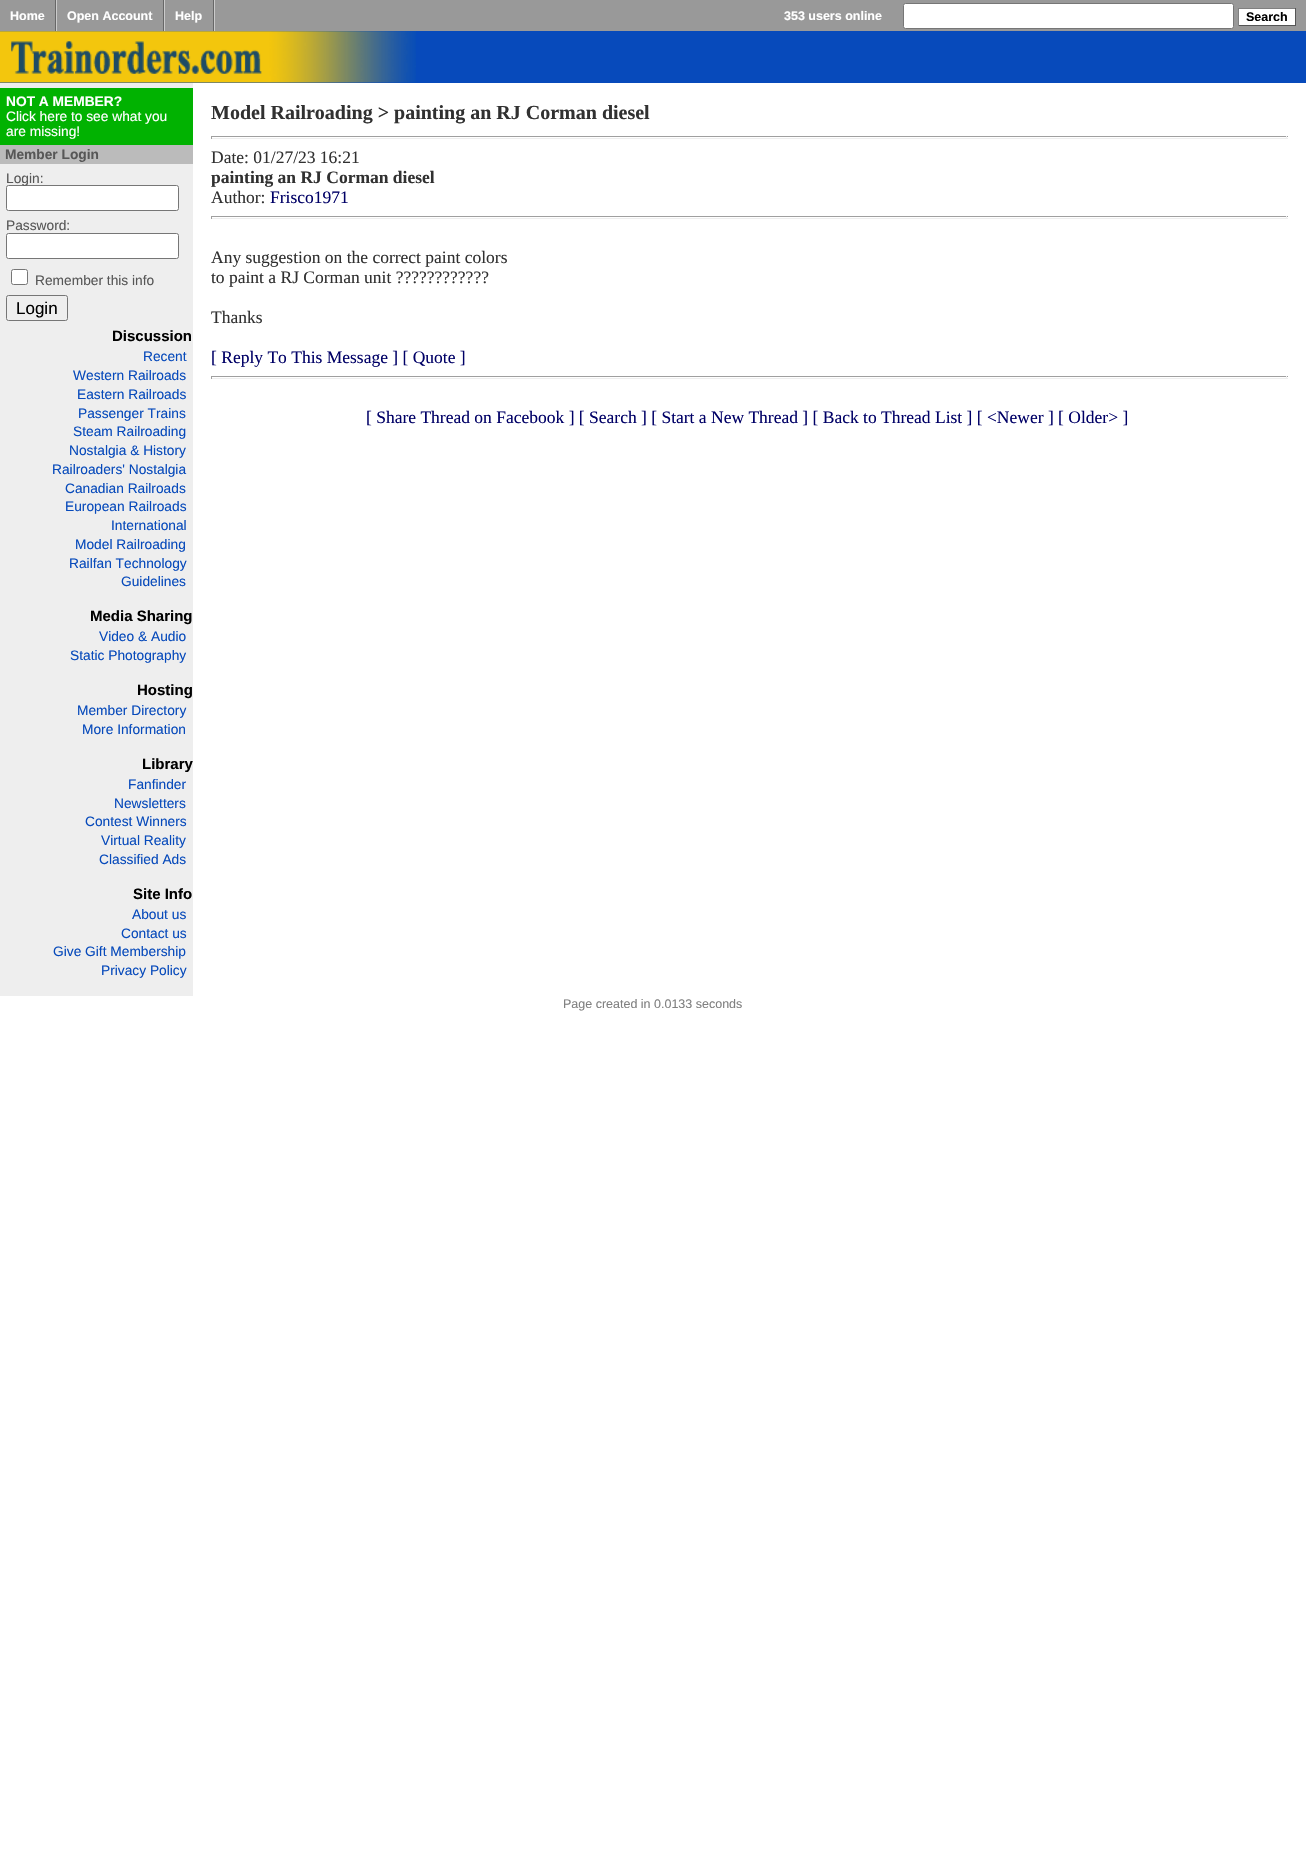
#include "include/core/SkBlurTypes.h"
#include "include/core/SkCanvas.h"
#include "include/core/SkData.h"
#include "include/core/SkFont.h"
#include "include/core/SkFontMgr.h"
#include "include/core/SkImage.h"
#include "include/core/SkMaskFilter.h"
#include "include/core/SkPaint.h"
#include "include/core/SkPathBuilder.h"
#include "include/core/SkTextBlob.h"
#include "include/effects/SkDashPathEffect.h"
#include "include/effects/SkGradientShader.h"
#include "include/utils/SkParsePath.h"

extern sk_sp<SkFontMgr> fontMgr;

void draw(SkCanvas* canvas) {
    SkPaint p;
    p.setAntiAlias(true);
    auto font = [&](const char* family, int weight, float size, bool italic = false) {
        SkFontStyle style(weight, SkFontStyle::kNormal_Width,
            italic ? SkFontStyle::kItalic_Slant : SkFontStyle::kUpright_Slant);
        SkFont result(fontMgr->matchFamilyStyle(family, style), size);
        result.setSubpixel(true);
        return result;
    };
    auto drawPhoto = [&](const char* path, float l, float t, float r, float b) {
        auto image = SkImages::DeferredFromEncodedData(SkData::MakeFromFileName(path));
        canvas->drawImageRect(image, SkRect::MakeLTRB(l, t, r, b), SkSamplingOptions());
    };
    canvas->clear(0xFFFFFFFF);
    p.setColor(0xFF999999);
    canvas->drawRect(SkRect::MakeLTRB(0, 0, 1306, 31), p);
    p.setColor(0xFF676767);
    canvas->drawRect(SkRect::MakeLTRB(55, 0, 56, 31), p);
    auto font1 = font("Liberation Sans", 700, 12.5f);
    p.setColor(0xFFFFFFFF);
    canvas->drawString("Home", 10, 20, font1, p);
    p.setColor(0xFF676767);
    canvas->drawRect(SkRect::MakeLTRB(163, 0, 164, 31), p);
    p.setColor(0xFFCBCBCB);
    canvas->drawRect(SkRect::MakeLTRB(56, 0, 57, 31), p);
    p.setColor(0xFFFFFFFF);
    canvas->drawString("Open Account", 67, 20, font1, p);
    p.setColor(0xFF676767);
    canvas->drawRect(SkRect::MakeLTRB(213, 0, 214, 31), p);
    p.setColor(0xFFCBCBCB);
    canvas->drawRect(SkRect::MakeLTRB(164, 0, 165, 31), p);
    p.setColor(0xFFFFFFFF);
    canvas->drawString("Help", 175, 20, font1, p);
    p.setColor(0xFFCBCBCB);
    canvas->drawRect(SkRect::MakeLTRB(214, 0, 215, 31), p);
    p.setColor(0xFFFFFFFF);
    canvas->drawString("353 users online", 784, 20, font1, p);
    canvas->drawRoundRect(SkRect::MakeLTRB(903.5f, 3.5f, 1233.5f, 28.5f), 2, 2, p);
    p.setStyle(SkPaint::kStroke_Style);
    p.setStrokeWidth(1);
    p.setColor(0xFF767676);
    canvas->drawRoundRect(SkRect::MakeLTRB(903.5f, 3.5f, 1233.5f, 28.5f), 2, 2, p);
    p.setStyle(SkPaint::kFill_Style);
    {
        const struct { float l, t, r, b; SkColor color; } items[] = {
            {1239, 9, 1295, 25, 0xFFFFFFFF},
            {1238, 8, 1296, 9, 0xFF808080},
            {1295, 8, 1296, 26, 0xFF555555},
            {1238, 25, 1296, 26, 0xFF555555},
            {1238, 8, 1239, 26, 0xFF808080},
        };
        for (auto [l, t, r, b, color] : items) {
            p.setColor(color);
            canvas->drawRect(SkRect::MakeLTRB(l, t, r, b), p);
        }
    }
    p.setColor(0xFF000000);
    canvas->drawString("Search", 1246, 21, font1, p);
    p.setColor(0xFF074ABB);
    canvas->drawRect(SkRect::MakeLTRB(0, 31, 1306, 83), p);
    drawPhoto("media/1.png", 0, 31, 416, 83);
    p.setColor(0xFFEEEEEE);
    canvas->drawRect(SkRect::MakeLTRB(0, 83, 193, 996), p);
    p.setColor(0xFF01B201);
    canvas->drawRect(SkRect::MakeLTRB(0, 88, 193, 145), p);
    auto font2 = font("Liberation Sans", 700, 13.75f);
    p.setColor(0xFFFFFFFF);
    canvas->drawString("NOT A MEMBER?", 6, 106, font2, p);
    auto font3 = font("Liberation Sans", 400, 13.75f);
    canvas->drawString("Click here to see what you", 6, 121, font3, p);
    canvas->drawString("are missing!", 6, 136, font3, p);
    p.setColor(0xFFBBBBBB);
    canvas->drawRect(SkRect::MakeLTRB(0, 145, 193, 164), p);
    p.setColor(0xFF575757);
    canvas->drawString("Member Login", 5, 159, font2, p);
    p.setColor(0xFFFFFFFF);
    canvas->drawRoundRect(SkRect::MakeLTRB(6.5f, 185.5f, 178.5f, 210.5f), 2, 2, p);
    p.setStyle(SkPaint::kStroke_Style);
    p.setColor(0xFF767676);
    canvas->drawRoundRect(SkRect::MakeLTRB(6.5f, 185.5f, 178.5f, 210.5f), 2, 2, p);
    p.setStyle(SkPaint::kFill_Style);
    p.setColor(0xFF575757);
    canvas->drawString("Login:", 6, 183, font3, p);
    canvas->drawString("Password:", 6, 230, font3, p);
    p.setColor(0xFFFFFFFF);
    canvas->drawRoundRect(SkRect::MakeLTRB(6.5f, 233.5f, 178.5f, 258.5f), 2, 2, p);
    p.setStyle(SkPaint::kStroke_Style);
    p.setColor(0xFF767676);
    canvas->drawRoundRect(SkRect::MakeLTRB(6.5f, 233.5f, 178.5f, 258.5f), 2, 2, p);
    p.setStyle(SkPaint::kFill_Style);
    p.setColor(0xFFFFFFFF);
    canvas->drawRoundRect(SkRect::MakeLTRB(11.5f, 269.5f, 27.5f, 284.5f), 2, 2, p);
    p.setStyle(SkPaint::kStroke_Style);
    p.setColor(0xFF767676);
    canvas->drawRoundRect(SkRect::MakeLTRB(11.5f, 269.5f, 27.5f, 284.5f), 2, 2, p);
    p.setStyle(SkPaint::kFill_Style);
    p.setColor(0xFF575757);
    canvas->drawString("Remember this info", 35, 285, font3, p);
    p.setStyle(SkPaint::kStroke_Style);
    p.setColor(0xFF767676);
    canvas->drawRoundRect(SkRect::MakeLTRB(6.5f, 295.5f, 67.5f, 320.5f), 2, 2, p);
    auto font4 = font("Liberation Sans", 400, 17);
    p.setStyle(SkPaint::kFill_Style);
    p.setColor(0xFF000000);
    canvas->drawString("Login", 16, 314, font4, p);
    auto font5 = font("Liberation Sans", 700, 15);
    canvas->drawString("Discussion", 112, 341, font5, p);
    p.setColor(0xFF074ABB);
    {
        const struct { const char* s; float x, y; } items[] = {
            {"Recent", 143, 361},
            {"Western Railroads", 73, 380},
            {"Eastern Railroads", 77, 399},
            {"Passenger Trains", 78, 418},
            {"Steam Railroading", 73, 436},
            {"Nostalgia & History", 69, 455},
            {"Railroaders' Nostalgia", 52, 474},
            {"Canadian Railroads", 65, 493},
            {"European Railroads", 65, 511},
            {"International", 111, 530},
            {"Model Railroading", 75, 549},
            {"Railfan Technology", 69, 568},
            {"Guidelines", 121, 586},
        };
        for (auto [s, x, y] : items) {
            canvas->drawString(s, x, y, font3, p);
        }
    }
    p.setColor(0xFF000000);
    canvas->drawString("Media Sharing", 90, 621, font5, p);
    p.setColor(0xFF074ABB);
    canvas->drawString("Video & Audio", 99, 641, font3, p);
    canvas->drawString("Static Photography", 70, 660, font3, p);
    p.setColor(0xFF000000);
    canvas->drawString("Hosting", 137, 695, font5, p);
    p.setColor(0xFF074ABB);
    canvas->drawString("Member Directory", 77, 715, font3, p);
    canvas->drawString("More Information", 82, 734, font3, p);
    p.setColor(0xFF000000);
    canvas->drawString("Library", 142, 769, font5, p);
    p.setColor(0xFF074ABB);
    {
        const struct { const char* s; float x, y; } items[] = {
            {"Fanfinder", 128, 789},
            {"Newsletters", 114, 808},
            {"Contest Winners", 85, 826},
            {"Virtual Reality", 101, 845},
            {"Classified Ads", 99, 864},
        };
        for (auto [s, x, y] : items) {
            canvas->drawString(s, x, y, font3, p);
        }
    }
    p.setColor(0xFF000000);
    canvas->drawString("Site Info", 133, 899, font5, p);
    p.setColor(0xFF074ABB);
    {
        const struct { const char* s; float x, y; } items[] = {
            {"About us", 132, 919},
            {"Contact us", 121, 938},
            {"Give Gift Membership", 53, 956},
            {"Privacy Policy", 101, 975},
        };
        for (auto [s, x, y] : items) {
            canvas->drawString(s, x, y, font3, p);
        }
    }
    auto font6 = font("Liberation Serif", 700, 20);
    p.setColor(0xFF313131);
    canvas->drawString("Model Railroading > painting an RJ Corman diesel", 211, 119, font6, p);
    {
        const struct { float l, t, r, b; SkColor color; } items[] = {
            {211, 136, 1288, 137, 0xFF9F9F9F},
            {1286, 136, 1287, 139, 0xFFEEEEEE},
            {211, 138, 1288, 139, 0xFFEEEEEE},
            {211, 136, 212, 139, 0xFF9F9F9F},
        };
        for (auto [l, t, r, b, color] : items) {
            p.setColor(color);
            canvas->drawRect(SkRect::MakeLTRB(l, t, r, b), p);
        }
    }
    auto font7 = font("Liberation Serif", 400, 17.5f);
    p.setColor(0xFF313131);
    canvas->drawString("Date: 01/27/23 16:21", 211, 163, font7, p);
    auto font8 = font("Liberation Serif", 700, 17.5f);
    canvas->drawString("painting an RJ Corman diesel", 211, 183, font8, p);
    canvas->drawString("Author:", 211, 203, font7, p);
    p.setColor(0xFF000066);
    canvas->drawString("Frisco1971", 270, 203, font7, p);
    {
        const struct { float l, t, r, b; SkColor color; } items[] = {
            {211, 216, 1288, 217, 0xFF9F9F9F},
            {1286, 216, 1287, 219, 0xFFEEEEEE},
            {211, 218, 1288, 219, 0xFFEEEEEE},
            {211, 216, 212, 219, 0xFF9F9F9F},
        };
        for (auto [l, t, r, b, color] : items) {
            p.setColor(color);
            canvas->drawRect(SkRect::MakeLTRB(l, t, r, b), p);
        }
    }
    p.setColor(0xFF313131);
    {
        const struct { const char* s; float x, y; } items[] = {
            {"Any suggestion on the correct paint colors", 211, 263},
            {"to paint a RJ Corman unit ?\077?\077?\077?\077?\077?\077", 211, 283},
            {"Thanks", 211, 323},
        };
        for (auto [s, x, y] : items) {
            canvas->drawString(s, x, y, font7, p);
        }
    }
    p.setColor(0xFF000066);
    canvas->drawString("[ Reply To This Message ] [ Quote ]", 211, 363, font7, p);
    {
        const struct { float l, t, r, b; SkColor color; } items[] = {
            {211, 376, 1288, 377, 0xFF9F9F9F},
            {1286, 376, 1287, 379, 0xFFEEEEEE},
            {211, 378, 1288, 379, 0xFFEEEEEE},
            {211, 376, 212, 379, 0xFF9F9F9F},
        };
        for (auto [l, t, r, b, color] : items) {
            p.setColor(color);
            canvas->drawRect(SkRect::MakeLTRB(l, t, r, b), p);
        }
    }
    p.setColor(0xFF000066);
    canvas->drawString("[ Share Thread on Facebook ] [ Search ] [ Start a New Thread ] [ Back to Thread List ] [ <Newer ] [ Older> ]", 366, 423, font7, p);
    auto font9 = font("Liberation Sans", 400, 12.5f);
    p.setColor(0xFF808080);
    canvas->drawString("Page created in 0.0133 seconds", 563, 1008, font9, p);
}
